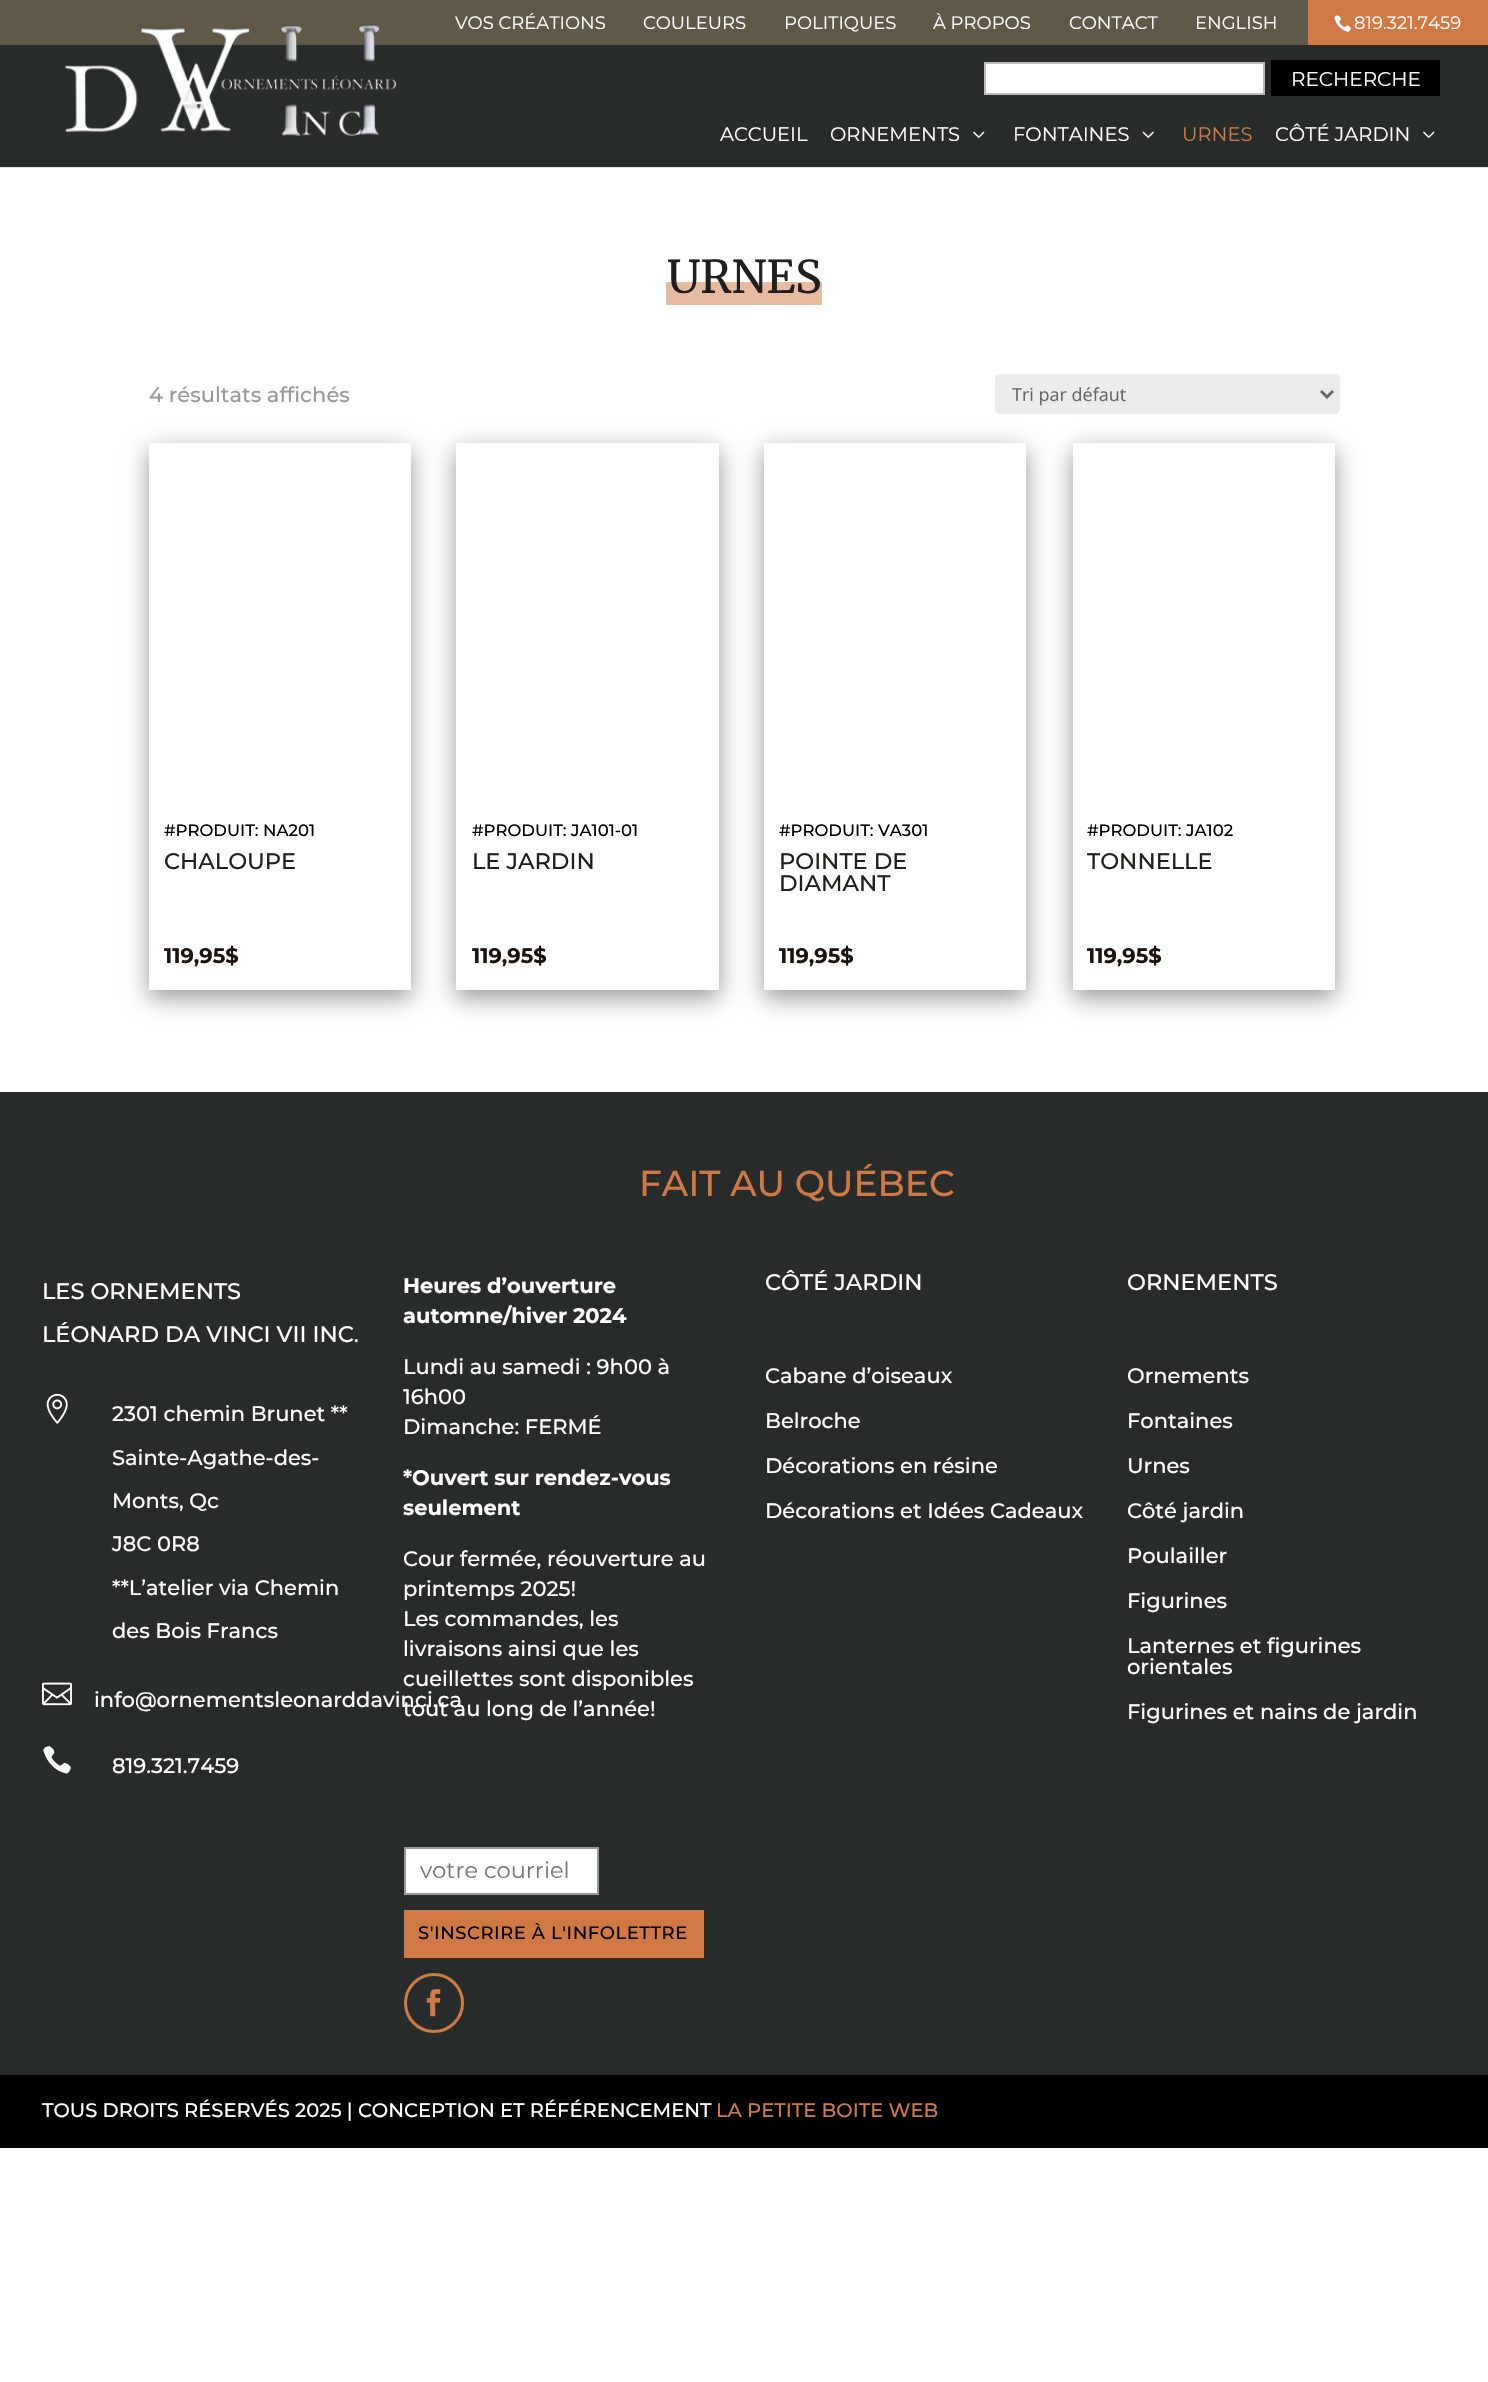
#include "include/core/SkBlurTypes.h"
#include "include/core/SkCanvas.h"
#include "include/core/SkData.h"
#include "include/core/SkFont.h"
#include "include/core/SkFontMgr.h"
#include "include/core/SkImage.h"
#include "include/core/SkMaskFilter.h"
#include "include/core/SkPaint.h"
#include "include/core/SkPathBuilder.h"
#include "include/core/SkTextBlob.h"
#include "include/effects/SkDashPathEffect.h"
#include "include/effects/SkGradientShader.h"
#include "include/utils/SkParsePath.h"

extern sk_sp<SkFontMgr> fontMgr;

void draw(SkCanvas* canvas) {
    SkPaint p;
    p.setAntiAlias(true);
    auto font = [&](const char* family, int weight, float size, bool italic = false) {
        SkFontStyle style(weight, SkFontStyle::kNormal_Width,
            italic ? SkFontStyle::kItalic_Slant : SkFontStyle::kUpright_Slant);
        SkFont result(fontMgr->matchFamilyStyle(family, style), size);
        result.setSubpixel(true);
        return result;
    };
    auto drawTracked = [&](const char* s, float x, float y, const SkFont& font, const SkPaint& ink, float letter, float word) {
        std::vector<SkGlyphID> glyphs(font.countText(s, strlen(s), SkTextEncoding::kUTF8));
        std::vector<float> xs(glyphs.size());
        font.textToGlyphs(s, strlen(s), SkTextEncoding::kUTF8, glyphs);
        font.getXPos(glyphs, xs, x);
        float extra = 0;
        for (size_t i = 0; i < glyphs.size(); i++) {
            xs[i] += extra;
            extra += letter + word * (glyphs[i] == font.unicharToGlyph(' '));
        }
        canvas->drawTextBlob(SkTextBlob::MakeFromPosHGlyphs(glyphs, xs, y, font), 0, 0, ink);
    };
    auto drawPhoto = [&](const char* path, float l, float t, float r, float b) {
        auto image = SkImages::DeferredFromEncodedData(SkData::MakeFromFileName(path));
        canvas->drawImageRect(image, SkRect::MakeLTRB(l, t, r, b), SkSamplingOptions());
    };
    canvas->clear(0xFFFFFFFF);
    p.setColor(0xFF605948);
    canvas->drawRect(SkRect::MakeLTRB(0, 0, 1308, 45), p);
    auto font1 = font("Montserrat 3", 100, 18);
    p.setColor(0xFFFFFFFF);
    {
        const struct { const char* s; float x, y; } items[] = {
            {"VOS CRÉATIONS", 455, 29},
            {"COULEURS", 643, 29},
            {"POLITIQUES", 784, 29},
            {"À PROPOS", 933, 29},
            {"CONTACT", 1069, 29},
            {"ENGLISH", 1195, 29},
        };
        for (auto [s, x, y] : items) {
            canvas->drawString(s, x, y, font1, p);
        }
    }
    p.setColor(0xFFD07945);
    canvas->drawRect(SkRect::MakeLTRB(1308, 0, 1488, 45), p);
    drawPhoto("media/1.png", 1334, 15, 1351, 32);
    p.setColor(0xFFFFFFFF);
    canvas->drawString("819.321.7459", 1354, 29, font1, p);
    p.setColor(0xFFE6E6E6);
    canvas->drawRect(SkRect::MakeLTRB(0, 167, 1488, 168), p);
    p.setColor(0xFF272B2A);
    canvas->drawRect(SkRect::MakeLTRB(0, 45, 1488, 167), p);
    drawPhoto("media/2.png", 65, 24, 397, 136);
    p.setColor(0xFFFFFFFF);
    canvas->drawRect(SkRect::MakeLTRB(985, 63, 1264, 94), p);
    p.setStyle(SkPaint::kStroke_Style);
    p.setStrokeWidth(2);
    p.setColor(0xFFBBBBBB);
    canvas->drawRect(SkRect::MakeLTRB(985, 63, 1264, 94), p);
    p.setStyle(SkPaint::kFill_Style);
    p.setColor(0xFF000000);
    canvas->drawRect(SkRect::MakeLTRB(1271, 60, 1440, 96), p);
    auto font2 = font("Montserrat 3", 100, 20);
    p.setColor(0xFFFFFFFF);
    canvas->drawString("RECHERCHE", 1291, 86, font2, p);
    auto font3 = font("Montserrat 3", 100, 19.5f);
    canvas->drawString("ACCUEIL", 720, 141, font3, p);
    canvas->drawString("ORNEMENTS", 830, 141, font3, p);
    drawPhoto("media/3.png", 973, 131, 985, 138);
    canvas->drawString("FONTAINES", 1013, 141, font3, p);
    drawPhoto("media/4.png", 1142, 131, 1154, 138);
    p.setColor(0xFFD07945);
    canvas->drawString("URNES", 1182, 141, font3, p);
    p.setColor(0xFFFFFFFF);
    canvas->drawString("CÔTÉ JARDIN", 1275, 141, font3, p);
    drawPhoto("media/3.png", 1423, 131, 1435, 138);
    p.setColor(0xFFE7BBA0);
    canvas->drawRect(SkRect::MakeLTRB(666, 282, 822, 305), p);
    auto font4 = font("Merriweather", 300, 45);
    p.setColor(0xFF211F1C);
    canvas->drawString("URNES", 667, 293, font4, p);
    auto font5 = font("Montserrat", 100, 21);
    p.setColor(0xFF999999);
    canvas->drawString("4 résultats affichés", 149, 402, font5, p);
    p.setColor(0xFFECECEC);
    canvas->drawRoundRect(SkRect::MakeLTRB(995, 374, 1340, 414), 5, 5, p);
    p.setStyle(SkPaint::kStroke_Style);
    p.setStrokeWidth(3);
    p.setColor(0xFF666666);
    canvas->drawPath(SkPathBuilder().moveTo(1321, 391).lineTo(1327, 397).lineTo(1333, 391).detach(), p);
    auto font6 = font("Open Sans", 400, 18);
    p.setStyle(SkPaint::kFill_Style);
    canvas->drawString("Tri par défaut", 1012, 401, font6, p);
    canvas->save();
    canvas->clipPath(SkPathBuilder(SkPathFillType::kEvenOdd).moveTo(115, 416).lineTo(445, 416).lineTo(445, 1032).lineTo(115, 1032).close().moveTo(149, 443).lineTo(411, 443).lineTo(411, 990).lineTo(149, 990).close().detach(), true);
    p.setColor(0x66000000);
    p.setMaskFilter(SkMaskFilter::MakeBlur(kNormal_SkBlurStyle, 11));
    canvas->drawRect(SkRect::MakeLTRB(149, 450, 411, 998), p);
    p.setMaskFilter(nullptr);
    canvas->restore();
    auto font7 = font("Montserrat", 100, 16.5f);
    p.setColor(0xFF000000);
    canvas->drawString("#PRODUIT: NA201", 164, 836, font7, p);
    auto font8 = font("Montserrat", 100, 22.5f);
    p.setColor(0xFF211F1C);
    canvas->drawString("CHALOUPE", 164, 869, font8, p);
    auto font9 = font("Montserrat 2", 100, 21);
    p.setColor(0xFF1B120E);
    canvas->drawString("119,95$", 164, 963, font9, p);
    p.setColor(0x66000000);
    p.setMaskFilter(SkMaskFilter::MakeBlur(kNormal_SkBlurStyle, 11));
    canvas->drawRect(SkRect::MakeLTRB(456, 450, 719, 998), p);
    p.setMaskFilter(nullptr);
    p.setColor(0xFFFFFFFF);
    canvas->drawRect(SkRect::MakeLTRB(456, 443, 719, 990), p);
    p.setColor(0xFF000000);
    canvas->drawString("#PRODUIT: JA101-01", 472, 836, font7, p);
    p.setColor(0xFF211F1C);
    canvas->drawString("LE JARDIN", 472, 869, font8, p);
    p.setColor(0xFF1B120E);
    canvas->drawString("119,95$", 472, 963, font9, p);
    canvas->save();
    canvas->clipPath(SkPathBuilder(SkPathFillType::kEvenOdd).moveTo(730, 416).lineTo(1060, 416).lineTo(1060, 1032).lineTo(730, 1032).close().moveTo(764, 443).lineTo(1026, 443).lineTo(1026, 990).lineTo(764, 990).close().detach(), true);
    p.setColor(0x66000000);
    p.setMaskFilter(SkMaskFilter::MakeBlur(kNormal_SkBlurStyle, 11));
    canvas->drawRect(SkRect::MakeLTRB(764, 450, 1026, 998), p);
    p.setMaskFilter(nullptr);
    canvas->restore();
    p.setColor(0xFF000000);
    canvas->drawString("#PRODUIT: VA301", 779, 836, font7, p);
    p.setColor(0xFF211F1C);
    canvas->drawString("POINTE DE", 779, 869, font8, p);
    canvas->drawString("DIAMANT", 779, 891, font8, p);
    p.setColor(0xFF1B120E);
    canvas->drawString("119,95$", 779, 963, font9, p);
    canvas->save();
    canvas->clipPath(SkPathBuilder(SkPathFillType::kEvenOdd).moveTo(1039, 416).lineTo(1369, 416).lineTo(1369, 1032).lineTo(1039, 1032).close().moveTo(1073, 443).lineTo(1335, 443).lineTo(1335, 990).lineTo(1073, 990).close().detach(), true);
    p.setColor(0x66000000);
    p.setMaskFilter(SkMaskFilter::MakeBlur(kNormal_SkBlurStyle, 11));
    canvas->drawRect(SkRect::MakeLTRB(1073, 450, 1335, 998), p);
    p.setMaskFilter(nullptr);
    canvas->restore();
    p.setColor(0xFF000000);
    canvas->drawString("#PRODUIT: JA102", 1087, 836, font7, p);
    p.setColor(0xFF211F1C);
    canvas->drawString("TONNELLE", 1087, 869, font8, p);
    p.setColor(0xFF1B120E);
    canvas->drawString("119,95$", 1087, 963, font9, p);
    p.setColor(0xFF272B2A);
    canvas->drawRect(SkRect::MakeLTRB(0, 1092, 1488, 2075), p);
    auto font10 = font("Montserrat", 100, 36);
    p.setColor(0xFFD07945);
    canvas->drawString("FAIT AU QUÉBEC", 639, 1196, font10, p);
    p.setColor(0xFFFFFFFF);
    canvas->drawString("LES ORNEMENTS", 42, 1299, font8, p);
    canvas->drawString("LÉONARD DA VINCI VII INC.", 42, 1342, font8, p);
    drawPhoto("media/5.png", 46, 1393, 68, 1424);
    {
        const struct { const char* s; float x, y; } items[] = {
            {"2301 chemin Brunet **", 112, 1421},
            {"Sainte-Agathe-des-", 112, 1465},
            {"Monts, Qc", 112, 1508},
            {"J8C 0R8", 112, 1551},
            {"**L’atelier via Chemin", 112, 1595},
            {"des Bois Francs", 112, 1638},
        };
        for (auto [s, x, y] : items) {
            canvas->drawString(s, x, y, font5, p);
        }
    }
    drawPhoto("media/6.png", 42, 1682, 72, 1706);
    canvas->drawString("info@ornementsleonarddavinci.ca", 94, 1707, font5, p);
    drawPhoto("media/7.png", 43, 1746, 71, 1774);
    canvas->drawString("819.321.7459", 112, 1773, font5, p);
    canvas->drawString("Heures d’ouverture", 403, 1293, font9, p);
    canvas->drawString("automne/hiver 2024", 403, 1323, font9, p);
    {
        const struct { const char* s; float x, y; } items[] = {
            {"Lundi au samedi : 9h00 à", 403, 1374},
            {"16h00", 403, 1404},
            {"Dimanche: FERMÉ", 403, 1434},
        };
        for (auto [s, x, y] : items) {
            canvas->drawString(s, x, y, font5, p);
        }
    }
    canvas->drawString("*Ouvert sur rendez-vous", 403, 1485, font9, p);
    canvas->drawString("seulement", 403, 1515, font9, p);
    {
        const struct { const char* s; float x, y; } items[] = {
            {"Cour fermée, réouverture au", 403, 1566},
            {"printemps 2025!", 403, 1596},
            {"Les commandes, les", 403, 1626},
            {"livraisons ainsi que les", 403, 1656},
            {"cueillettes sont disponibles", 403, 1686},
            {"tout au long de l’année!", 403, 1716},
        };
        for (auto [s, x, y] : items) {
            canvas->drawString(s, x, y, font5, p);
        }
    }
    canvas->drawRect(SkRect::MakeLTRB(405, 1848, 598, 1894), p);
    p.setStyle(SkPaint::kStroke_Style);
    p.setStrokeWidth(2);
    p.setColor(0xFF999999);
    canvas->drawRect(SkRect::MakeLTRB(405, 1848, 598, 1894), p);
    auto font11 = font("Montserrat 3", 100, 22.5f);
    p.setStyle(SkPaint::kFill_Style);
    p.setColor(0xFF757575);
    canvas->drawString("votre courriel", 420, 1878, font11, p);
    p.setColor(0xFFD07945);
    canvas->drawRect(SkRect::MakeLTRB(404, 1910, 704, 1958), p);
    auto font12 = font("Montserrat", 100, 18);
    p.setColor(0xFF000000);
    drawTracked("S'INSCRIRE À L'INFOLETTRE", 418, 1939, font12, p, 0.55f, 0);
    p.setStyle(SkPaint::kStroke_Style);
    p.setStrokeWidth(3);
    p.setColor(0xFFD07945);
    canvas->drawCircle(434, 2003, 28.5f, p);
    drawPhoto("media/8.png", 426, 1989, 441, 2017);
    p.setStyle(SkPaint::kFill_Style);
    p.setColor(0xFFFFFFFF);
    canvas->drawString("CÔTÉ JARDIN", 765, 1290, font8, p);
    {
        const struct { const char* s; float x, y; } items[] = {
            {"Cabane d’oiseaux", 765, 1383},
            {"Belroche", 765, 1428},
            {"Décorations en résine", 765, 1473},
            {"Décorations et Idées Cadeaux", 765, 1518},
        };
        for (auto [s, x, y] : items) {
            canvas->drawString(s, x, y, font5, p);
        }
    }
    canvas->drawString("ORNEMENTS", 1127, 1290, font8, p);
    {
        const struct { const char* s; float x, y; } items[] = {
            {"Ornements", 1127, 1383},
            {"Fontaines", 1127, 1428},
            {"Urnes", 1127, 1473},
            {"Côté jardin", 1127, 1518},
            {"Poulailler", 1127, 1563},
            {"Figurines", 1127, 1608},
            {"Lanternes et figurines", 1127, 1653},
            {"orientales", 1127, 1674},
            {"Figurines et nains de jardin", 1127, 1719},
        };
        for (auto [s, x, y] : items) {
            canvas->drawString(s, x, y, font5, p);
        }
    }
    p.setColor(0xFF000000);
    canvas->drawRect(SkRect::MakeLTRB(0, 2075, 1488, 2148), p);
    auto font13 = font("Montserrat", 100, 19.5f);
    p.setColor(0xFFFFFFFF);
    canvas->drawString("TOUS DROITS RÉSERVÉS 2025 | CONCEPTION ET RÉFÉRENCEMENT", 42, 2117, font13, p);
    p.setColor(0xFFD07945);
    canvas->drawString("LA PETITE BOITE WEB", 716, 2117, font13, p);
}
